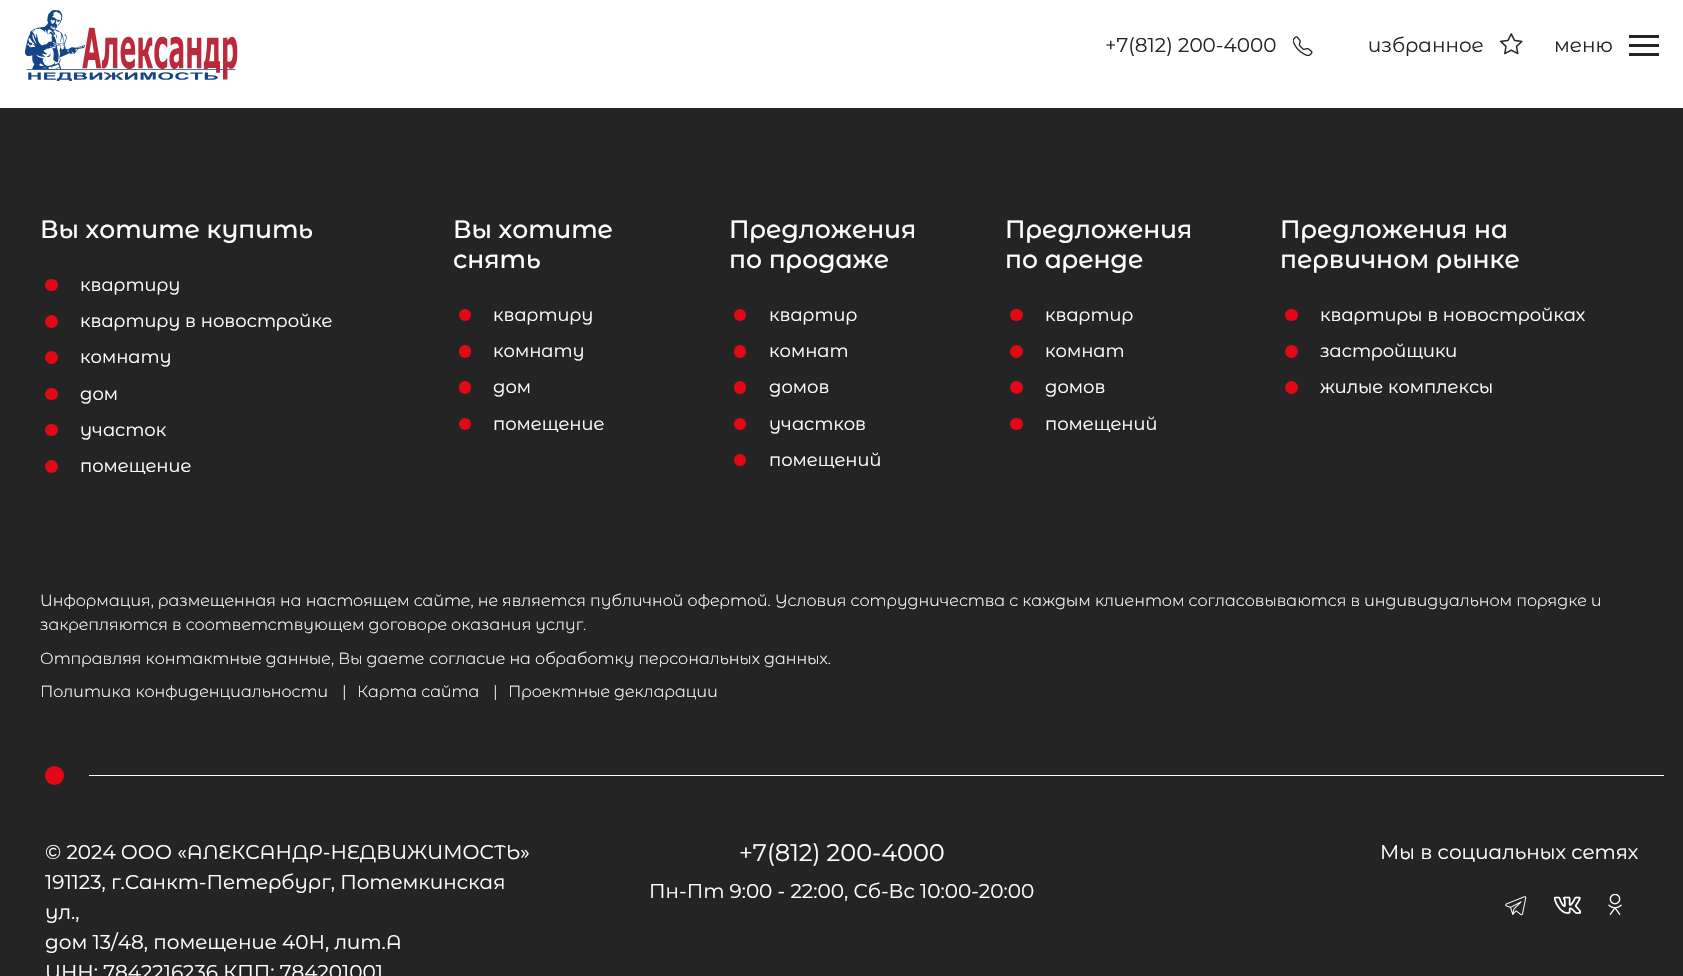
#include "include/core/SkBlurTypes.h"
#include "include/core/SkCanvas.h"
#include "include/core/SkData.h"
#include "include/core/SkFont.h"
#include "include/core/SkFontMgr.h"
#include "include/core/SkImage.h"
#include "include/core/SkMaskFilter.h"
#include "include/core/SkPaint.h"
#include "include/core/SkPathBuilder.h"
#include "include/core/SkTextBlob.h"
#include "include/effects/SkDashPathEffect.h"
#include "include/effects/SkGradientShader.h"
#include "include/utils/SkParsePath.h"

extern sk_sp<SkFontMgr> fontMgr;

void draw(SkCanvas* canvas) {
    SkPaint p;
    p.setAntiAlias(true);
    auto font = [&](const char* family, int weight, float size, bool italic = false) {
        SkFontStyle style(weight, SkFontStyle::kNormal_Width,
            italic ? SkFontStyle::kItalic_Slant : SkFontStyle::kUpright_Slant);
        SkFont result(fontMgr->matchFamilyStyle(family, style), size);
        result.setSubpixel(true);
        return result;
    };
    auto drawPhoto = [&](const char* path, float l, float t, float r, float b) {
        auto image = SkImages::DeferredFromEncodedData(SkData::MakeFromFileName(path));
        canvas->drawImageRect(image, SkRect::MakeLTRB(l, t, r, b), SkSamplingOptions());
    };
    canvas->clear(0xFFFFFFFF);
    drawPhoto("media/1.png", 25, 10, 238, 81);
    auto font1 = font("Montserrat Alternates", 400, 20);
    p.setColor(0xFF242424);
    canvas->drawString("+7(812) 200-4000", 1105, 52, font1, p);
    drawPhoto("media/2.png", 1293, 36, 1313, 56);
    canvas->drawString("избранное", 1368, 52, font1, p);
    drawPhoto("media/3.png", 1500, 33, 1523, 55);
    canvas->drawString("меню", 1554, 52, font1, p);
    {
        const struct { float l, t, r, b; SkColor color; } items[] = {
            {1629, 35, 1659, 38, 0xFF242424},
            {1629, 44, 1659, 47, 0xFF242424},
            {1629, 53, 1659, 56, 0xFF242424},
            {0, 108, 1683, 976, 0xFF242424},
        };
        for (auto [l, t, r, b, color] : items) {
            p.setColor(color);
            canvas->drawRect(SkRect::MakeLTRB(l, t, r, b), p);
        }
    }
    auto font2 = font("Montserrat Alternates", 500, 25);
    p.setColor(0xFFFFFFFF);
    canvas->drawString("Вы хотите купить", 40, 238, font2, p);
    p.setColor(0xFFE20816);
    canvas->drawRoundRect(SkRect::MakeLTRB(45, 279, 58, 291), 6, 6, p);
    auto font3 = font("Montserrat Alternates", 400, 18);
    p.setColor(0xFFFFFFFF);
    canvas->drawString("квартиру", 80, 291, font3, p);
    p.setColor(0xFFE20816);
    canvas->drawCircle(51.5f, 321.5f, 6.5f, p);
    p.setColor(0xFFFFFFFF);
    canvas->drawString("квартиру в новостройке", 80, 327, font3, p);
    p.setColor(0xFFE20816);
    canvas->drawCircle(51.5f, 357.5f, 6.5f, p);
    p.setColor(0xFFFFFFFF);
    canvas->drawString("комнату", 80, 363, font3, p);
    p.setColor(0xFFE20816);
    canvas->drawRoundRect(SkRect::MakeLTRB(45, 388, 58, 400), 6, 6, p);
    p.setColor(0xFFFFFFFF);
    canvas->drawString("дом", 80, 400, font3, p);
    p.setColor(0xFFE20816);
    canvas->drawRoundRect(SkRect::MakeLTRB(45, 424, 58, 436), 6, 6, p);
    p.setColor(0xFFFFFFFF);
    canvas->drawString("участок", 80, 436, font3, p);
    p.setColor(0xFFE20816);
    canvas->drawCircle(51.5f, 466.5f, 6.5f, p);
    p.setColor(0xFFFFFFFF);
    canvas->drawString("помещение", 80, 472, font3, p);
    canvas->drawString("Вы хотите", 453, 238, font2, p);
    canvas->drawString("снять", 453, 268, font2, p);
    p.setColor(0xFFE20816);
    canvas->drawCircle(465, 315, 6, p);
    p.setColor(0xFFFFFFFF);
    canvas->drawString("квартиру", 493, 321, font3, p);
    p.setColor(0xFFE20816);
    canvas->drawRoundRect(SkRect::MakeLTRB(459, 345, 471, 358), 6, 6, p);
    p.setColor(0xFFFFFFFF);
    canvas->drawString("комнату", 493, 357, font3, p);
    p.setColor(0xFFE20816);
    canvas->drawRoundRect(SkRect::MakeLTRB(459, 381, 471, 394), 6, 6, p);
    p.setColor(0xFFFFFFFF);
    canvas->drawString("дом", 493, 393, font3, p);
    p.setColor(0xFFE20816);
    canvas->drawCircle(465, 424, 6, p);
    p.setColor(0xFFFFFFFF);
    canvas->drawString("помещение", 493, 430, font3, p);
    canvas->drawString("Предложения", 729, 238, font2, p);
    canvas->drawString("по продаже", 729, 268, font2, p);
    p.setColor(0xFFE20816);
    canvas->drawCircle(740, 315, 6, p);
    p.setColor(0xFFFFFFFF);
    canvas->drawString("квартир", 769, 321, font3, p);
    p.setColor(0xFFE20816);
    canvas->drawRoundRect(SkRect::MakeLTRB(734, 345, 746, 358), 6, 6, p);
    p.setColor(0xFFFFFFFF);
    canvas->drawString("комнат", 769, 357, font3, p);
    p.setColor(0xFFE20816);
    canvas->drawRoundRect(SkRect::MakeLTRB(734, 381, 746, 394), 6, 6, p);
    p.setColor(0xFFFFFFFF);
    canvas->drawString("домов", 769, 393, font3, p);
    p.setColor(0xFFE20816);
    canvas->drawCircle(740, 424, 6, p);
    p.setColor(0xFFFFFFFF);
    canvas->drawString("участков", 769, 430, font3, p);
    p.setColor(0xFFE20816);
    canvas->drawCircle(740, 460, 6, p);
    p.setColor(0xFFFFFFFF);
    canvas->drawString("помещений", 769, 466, font3, p);
    canvas->drawString("Предложения", 1005, 238, font2, p);
    canvas->drawString("по аренде", 1005, 268, font2, p);
    p.setColor(0xFFE20816);
    canvas->drawRoundRect(SkRect::MakeLTRB(1010, 309, 1023, 321), 6, 6, p);
    p.setColor(0xFFFFFFFF);
    canvas->drawString("квартир", 1045, 321, font3, p);
    p.setColor(0xFFE20816);
    canvas->drawCircle(1016.5f, 351.5f, 6.5f, p);
    p.setColor(0xFFFFFFFF);
    canvas->drawString("комнат", 1045, 357, font3, p);
    p.setColor(0xFFE20816);
    canvas->drawCircle(1016.5f, 387.5f, 6.5f, p);
    p.setColor(0xFFFFFFFF);
    canvas->drawString("домов", 1045, 393, font3, p);
    p.setColor(0xFFE20816);
    canvas->drawRoundRect(SkRect::MakeLTRB(1010, 418, 1023, 430), 6, 6, p);
    p.setColor(0xFFFFFFFF);
    canvas->drawString("помещений", 1045, 430, font3, p);
    canvas->drawString("Предложения на", 1280, 238, font2, p);
    canvas->drawString("первичном рынке", 1280, 268, font2, p);
    p.setColor(0xFFE20816);
    canvas->drawRoundRect(SkRect::MakeLTRB(1285, 309, 1298, 321), 6, 6, p);
    p.setColor(0xFFFFFFFF);
    canvas->drawString("квартиры в новостройках", 1320, 321, font3, p);
    p.setColor(0xFFE20816);
    canvas->drawCircle(1291.5f, 351.5f, 6.5f, p);
    p.setColor(0xFFFFFFFF);
    canvas->drawString("застройщики", 1320, 357, font3, p);
    p.setColor(0xFFE20816);
    canvas->drawCircle(1291.5f, 387.5f, 6.5f, p);
    p.setColor(0xFFFFFFFF);
    canvas->drawString("жилые комплексы", 1320, 393, font3, p);
    auto font4 = font("Montserrat Alternates", 300, 16);
    {
        const struct { const char* s; float x, y; } items[] = {
            {"Информация, размещенная на настоящем сайте, не является публичной офертой. Условия сотрудничества с каждым клиентом согласовываются в индивидуальном порядке и", 40, 606},
            {"закрепляются в соответствующем договоре оказания услуг.", 40, 630},
            {"Отправляя контактные данные, Вы даете", 40, 664},
            {"согласие на обработку персональных данных.", 429, 664},
            {"Политика конфиденциальности", 40, 697},
            {"|", 342, 697},
            {"Карта сайта", 357, 697},
            {"|", 493, 697},
            {"Проектные декларации", 508, 697},
        };
        for (auto [s, x, y] : items) {
            canvas->drawString(s, x, y, font4, p);
        }
    }
    canvas->drawRect(SkRect::MakeLTRB(89, 775, 1664, 776), p);
    p.setColor(0xFFE20816);
    canvas->drawCircle(54.5f, 775.5f, 9.5f, p);
    p.setColor(0xFFFFFFFF);
    {
        const struct { const char* s; float x, y; } items[] = {
            {"© 2024 ООО «АЛЕКСАНДР-НЕДВИЖИМОСТЬ»", 45, 859},
            {"191123, г.Санкт-Петербург, Потемкинская", 45, 889},
            {"ул.,", 45, 919},
            {"дом 13/48, помещение 40Н, лит.А", 45, 949},
            {"ИНН: 7842216236 КПП: 784201001", 45, 979},
        };
        for (auto [s, x, y] : items) {
            canvas->drawString(s, x, y, font1, p);
        }
    }
    auto font5 = font("Montserrat Alternates", 400, 24);
    canvas->drawString("+7(812) 200-4000", 739, 861, font5, p);
    canvas->drawString("Пн-Пт 9:00 - 22:00, Сб-Вс 10:00-20:00", 649, 898, font1, p);
    canvas->drawString("Мы в социальных сетях", 1380, 859, font1, p);
    drawPhoto("media/4.png", 1505, 896, 1527, 916);
    drawPhoto("media/5.png", 1554, 896, 1581, 914);
    drawPhoto("media/6.png", 1608, 894, 1622, 915);
}
